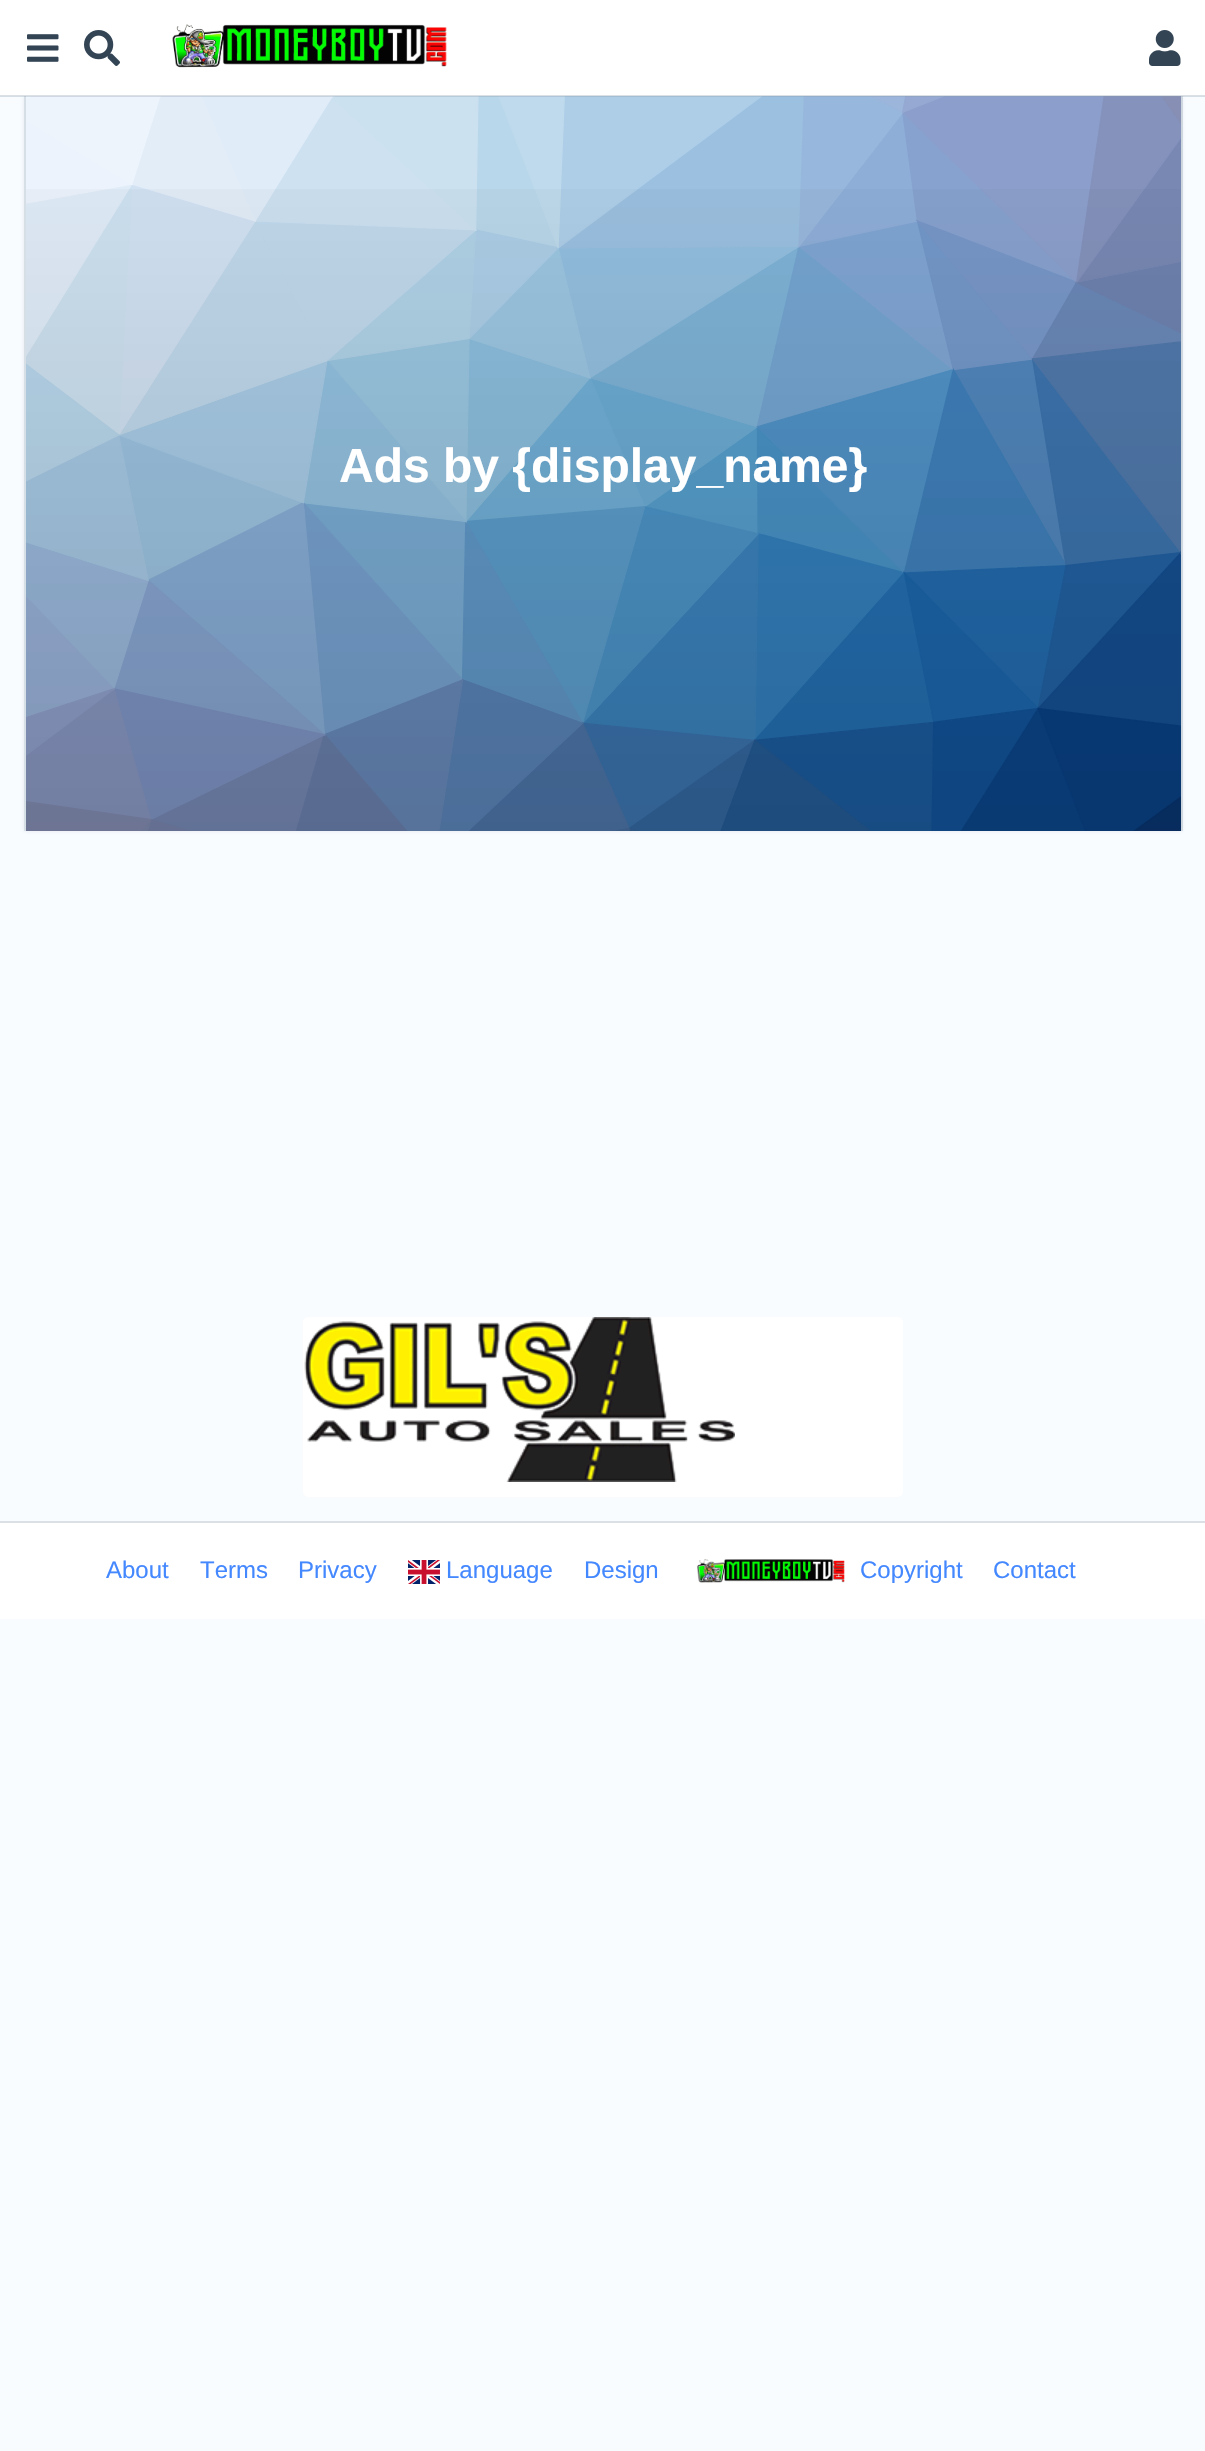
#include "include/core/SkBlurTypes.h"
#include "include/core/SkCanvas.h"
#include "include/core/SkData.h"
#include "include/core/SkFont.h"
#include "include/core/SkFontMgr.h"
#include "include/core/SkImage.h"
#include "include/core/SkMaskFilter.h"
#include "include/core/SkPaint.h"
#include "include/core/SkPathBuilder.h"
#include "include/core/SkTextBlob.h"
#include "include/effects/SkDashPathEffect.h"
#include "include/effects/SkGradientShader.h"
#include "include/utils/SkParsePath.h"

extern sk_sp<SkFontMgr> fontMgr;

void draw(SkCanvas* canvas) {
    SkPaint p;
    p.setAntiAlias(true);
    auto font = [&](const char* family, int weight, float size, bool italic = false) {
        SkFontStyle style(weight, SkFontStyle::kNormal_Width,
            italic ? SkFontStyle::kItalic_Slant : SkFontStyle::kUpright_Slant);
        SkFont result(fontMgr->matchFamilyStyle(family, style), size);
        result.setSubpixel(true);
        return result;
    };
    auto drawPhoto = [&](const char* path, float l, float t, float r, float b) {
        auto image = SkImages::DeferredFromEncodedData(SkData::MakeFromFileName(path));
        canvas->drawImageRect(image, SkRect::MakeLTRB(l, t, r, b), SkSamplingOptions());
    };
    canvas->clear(0xFFF8FCFF);
    p.setColor(0x1A334455);
    p.setMaskFilter(SkMaskFilter::MakeBlur(kNormal_SkBlurStyle, 2));
    canvas->drawRect(SkRect::MakeLTRB(24, 96, 1182, 831), p);
    p.setMaskFilter(nullptr);
    p.setColor(0xFFFFFFFF);
    canvas->drawRect(SkRect::MakeLTRB(0, 0, 1205, 96), p);
    drawPhoto("media/5.png", 26, 96, 1181, 831);
    {
        const struct { float l, t, r, b; SkColor color; } items[] = {
            {1181, 96, 1183, 831, 0x4D8899AA},
            {24, 96, 26, 831, 0xFFD6DEE6},
            {0, 95, 1205, 97, 0x4D8899AA},
        };
        for (auto [l, t, r, b, color] : items) {
            p.setColor(color);
            canvas->drawRect(SkRect::MakeLTRB(l, t, r, b), p);
        }
    }
    drawPhoto("media/1.png", 27, 34, 59, 62);
    drawPhoto("media/2.png", 84, 30, 120, 66);
    drawPhoto("media/3.png", 172, 24, 447, 68);
    drawPhoto("media/4.png", 1149, 30, 1181, 66);
    {
        const SkColor colors[] = {0x00000000, 0x2B000000};
        const float stops[] = {0, 1};
        const SkPoint ends[] = {{603, 96}, {603, 831}};
        p.setShader(SkGradientShader::MakeLinear(ends, colors, stops, 2, SkTileMode::kClamp));
        p.setAlpha(255);
    }
    canvas->drawRect(SkRect::MakeLTRB(26, 189, 1181, 831), p);
    auto font1 = font("Liberation Sans", 700, 48);
    p.setShader(nullptr);
    p.setColor(0xFFFFFFFF);
    canvas->drawString("Ads by {display_name}", 339, 482, font1, p);
    canvas->drawRoundRect(SkRect::MakeLTRB(303, 1317, 903, 1497), 5, 5, p);
    drawPhoto("media/6.png", 304, 1317, 735, 1482);
    canvas->drawRect(SkRect::MakeLTRB(0, 1523, 1205, 1619), p);
    p.setColor(0xFFDBE0E6);
    canvas->drawRect(SkRect::MakeLTRB(0, 1521, 1205, 1523), p);
    auto font2 = font("Liberation Sans", 400, 24);
    p.setColor(0xFF4488FF);
    {
        const struct { const char* s; float x, y; } items[] = {
            {"About", 106, 1578},
            {"Terms", 200, 1578},
            {"Privacy", 298, 1578},
        };
        for (auto [s, x, y] : items) {
            canvas->drawString(s, x, y, font2, p);
        }
    }
    drawPhoto("media/7.png", 408, 1560, 440, 1584);
    canvas->drawString("Language", 446, 1578, font2, p);
    canvas->drawString("Design", 584, 1578, font2, p);
    drawPhoto("media/8.png", 697, 1559, 845, 1583);
    canvas->drawString("Copyright", 860, 1578, font2, p);
    canvas->drawString("Contact", 993, 1578, font2, p);
}
